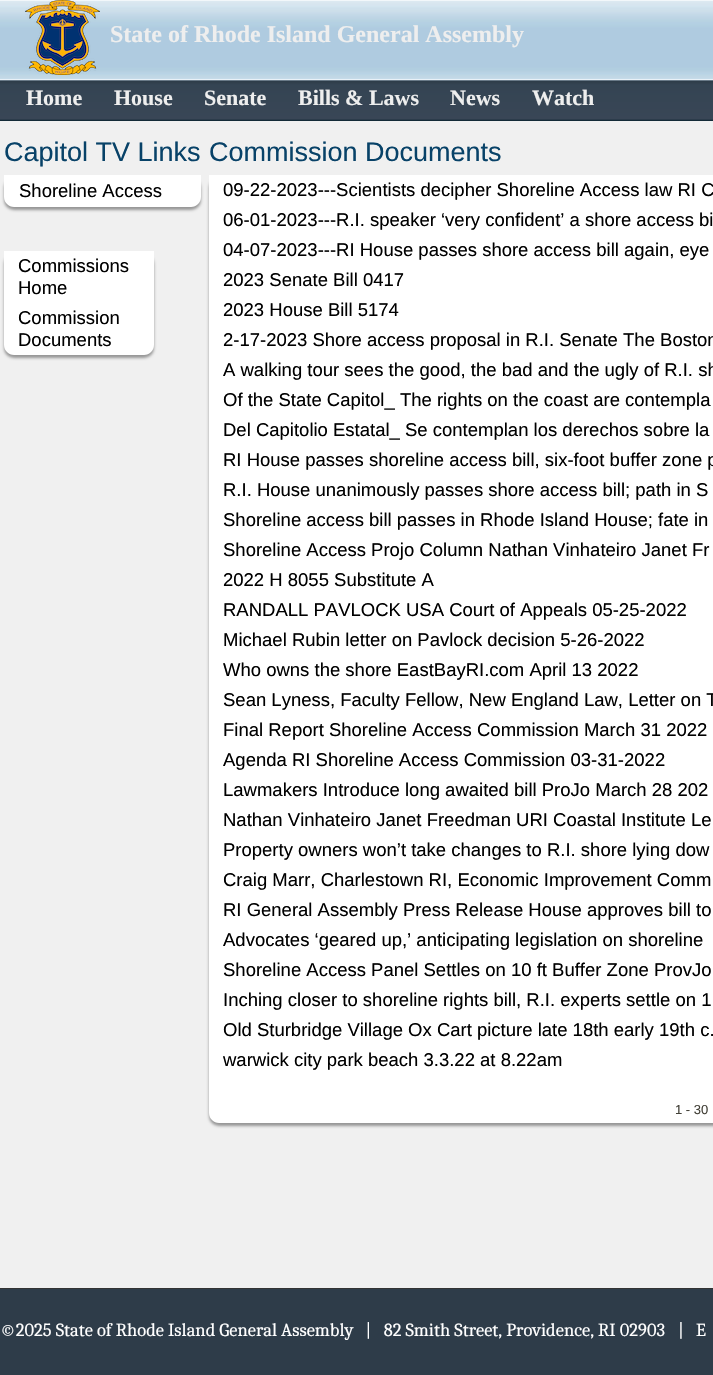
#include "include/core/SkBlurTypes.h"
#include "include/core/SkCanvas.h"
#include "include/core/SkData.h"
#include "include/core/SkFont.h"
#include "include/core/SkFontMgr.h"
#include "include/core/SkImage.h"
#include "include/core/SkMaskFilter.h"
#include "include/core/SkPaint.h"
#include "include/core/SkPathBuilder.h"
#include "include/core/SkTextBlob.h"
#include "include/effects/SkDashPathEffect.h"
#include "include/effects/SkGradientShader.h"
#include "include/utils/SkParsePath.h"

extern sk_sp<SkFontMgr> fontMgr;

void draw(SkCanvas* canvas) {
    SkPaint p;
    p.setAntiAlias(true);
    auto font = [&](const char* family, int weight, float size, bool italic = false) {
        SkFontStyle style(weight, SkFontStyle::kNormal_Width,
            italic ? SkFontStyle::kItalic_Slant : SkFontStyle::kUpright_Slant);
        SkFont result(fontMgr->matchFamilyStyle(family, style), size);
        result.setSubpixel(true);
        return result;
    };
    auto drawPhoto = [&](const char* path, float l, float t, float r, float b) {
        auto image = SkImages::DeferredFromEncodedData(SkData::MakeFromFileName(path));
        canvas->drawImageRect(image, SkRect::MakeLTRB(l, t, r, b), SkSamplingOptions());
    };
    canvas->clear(0xFFF0F0F0);
    drawPhoto("media/1.png", 0, 0, 713, 80);
    drawPhoto("media/2.png", 25, 0, 100, 75);
    auto font1 = font("Liberation Serif", 700, 24);
    p.setColor(0xFFEEEEEE);
    canvas->drawString("State of Rhode Island General Assembly", 110, 42, font1, p);
    {
        const SkColor colors[] = {0xFF91A4B3, 0xFF2E3C49, 0xFF344453, 0xFF394656, 0xFF07212D};
        const float stops[] = {0, 0.03f, 0.12f, 0.95f, 1};
        const SkPoint ends[] = {{600, 80}, {600, 121}};
        p.setShader(SkGradientShader::MakeLinear(ends, colors, stops, 5, SkTileMode::kClamp));
        p.setAlpha(255);
    }
    canvas->drawRect(SkRect::MakeLTRB(0, 80, 713, 121), p);
    auto font2 = font("Liberation Serif", 700, 22);
    p.setShader(nullptr);
    p.setColor(0xFFEEEEEE);
    {
        const struct { const char* s; float x, y; } items[] = {
            {"Home", 26, 105},
            {"House", 114, 105},
            {"Senate", 204, 105},
            {"Bills & Laws", 298, 105},
            {"News", 450, 105},
            {"Watch", 532, 105},
        };
        for (auto [s, x, y] : items) {
            canvas->drawString(s, x, y, font2, p);
        }
    }
    auto font3 = font("Liberation Sans", 400, 27);
    p.setColor(0xFF084268);
    canvas->drawString("Capitol TV Links", 4, 161, font3, p);
    p.setColor(0xFF969696);
    p.setMaskFilter(SkMaskFilter::MakeBlur(kNormal_SkBlurStyle, 1.5f));
    canvas->drawRoundRect(SkRect::MakeLTRB(4, 178, 201, 210), 10, 10, p);
    p.setMaskFilter(nullptr);
    p.setColor(0xFFFFFFFF);
    canvas->drawPath(SkPathBuilder().moveTo(4, 175).lineTo(201, 175).lineTo(201, 197).cubicTo(201, 202.5f, 196.5f, 207, 191, 207).lineTo(14, 207).cubicTo(8.5f, 207, 4, 202.5f, 4, 197).close().detach(), p);
    auto font4 = font("Liberation Sans", 400, 18.5f);
    p.setColor(0xFF000000);
    canvas->drawString("Shoreline Access", 19, 197, font4, p);
    p.setColor(0xFF969696);
    p.setMaskFilter(SkMaskFilter::MakeBlur(kNormal_SkBlurStyle, 1.5f));
    canvas->drawRoundRect(SkRect::MakeLTRB(4, 254, 154, 358), 10, 10, p);
    p.setMaskFilter(nullptr);
    p.setColor(0xFFFFFFFF);
    canvas->drawPath(SkPathBuilder().moveTo(4, 251).lineTo(154, 251).lineTo(154, 345).cubicTo(154, 350.5f, 149.5f, 355, 144, 355).lineTo(14, 355).cubicTo(8.5f, 355, 4, 350.5f, 4, 345).close().detach(), p);
    p.setColor(0xFF000000);
    {
        const struct { const char* s; float x, y; } items[] = {
            {"Commissions", 18, 272},
            {"Home", 18, 294},
            {"Commission", 18, 324},
            {"Documents", 18, 346},
        };
        for (auto [s, x, y] : items) {
            canvas->drawString(s, x, y, font4, p);
        }
    }
    p.setColor(0xFF084268);
    canvas->drawString("Commission Documents", 209, 161, font3, p);
    p.setColor(0xFF969696);
    p.setMaskFilter(SkMaskFilter::MakeBlur(kNormal_SkBlurStyle, 1.5f));
    canvas->drawRoundRect(SkRect::MakeLTRB(209, 178, 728, 1126), 10, 10, p);
    p.setMaskFilter(nullptr);
    p.setColor(0xFFFFFFFF);
    canvas->drawPath(SkPathBuilder().moveTo(209, 175).lineTo(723, 175).lineTo(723, 1113).cubicTo(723, 1118.5f, 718.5f, 1123, 713, 1123).lineTo(219, 1123).cubicTo(213.5f, 1123, 209, 1118.5f, 209, 1113).close().detach(), p);
    p.setColor(0xFF000000);
    {
        const struct { const char* s; float x, y; } items[] = {
            {"09-22-2023---Scientists decipher Shoreline Access law RI C", 223, 196},
            {"06-01-2023---R.I. speaker ‘very confident’ a shore access bi", 223, 226},
            {"04-07-2023---RI House passes shore access bill again, eye", 223, 256},
            {"2023 Senate Bill 0417", 223, 286},
            {"2023 House Bill 5174", 223, 316},
            {"2-17-2023 Shore access proposal in R.I. Senate The Boston", 223, 346},
            {"A walking tour sees the good, the bad and the ugly of R.I. sh", 223, 376},
            {"Of the State Capitol_ The rights on the coast are contempla", 223, 406},
            {"Del Capitolio Estatal_ Se contemplan los derechos sobre la", 223, 436},
            {"RI House passes shoreline access bill, six-foot buffer zone p", 223, 466},
            {"R.I. House unanimously passes shore access bill; path in S", 223, 496},
            {"Shoreline access bill passes in Rhode Island House; fate in", 223, 526},
            {"Shoreline Access Projo Column Nathan Vinhateiro Janet Fr", 223, 556},
            {"2022 H 8055 Substitute A", 223, 586},
            {"RANDALL PAVLOCK USA Court of Appeals 05-25-2022", 223, 616},
            {"Michael Rubin letter on Pavlock decision 5-26-2022", 223, 646},
            {"Who owns the shore EastBayRI.com April 13 2022", 223, 676},
            {"Sean Lyness, Faculty Fellow, New England Law, Letter on T", 223, 706},
            {"Final Report Shoreline Access Commission March 31 2022", 223, 736},
            {"Agenda RI Shoreline Access Commission 03-31-2022", 223, 766},
            {"Lawmakers Introduce long awaited bill ProJo March 28 202", 223, 796},
            {"Nathan Vinhateiro Janet Freedman URI Coastal Institute Le", 223, 826},
            {"Property owners won’t take changes to R.I. shore lying dow", 223, 856},
            {"Craig Marr, Charlestown RI, Economic Improvement Comm", 223, 886},
            {"RI General Assembly Press Release House approves bill to", 223, 916},
            {"Advocates ‘geared up,’ anticipating legislation on shoreline", 223, 946},
            {"Shoreline Access Panel Settles on 10 ft Buffer Zone ProvJo", 223, 976},
            {"Inching closer to shoreline rights bill, R.I. experts settle on 1", 223, 1006},
            {"Old Sturbridge Village Ox Cart picture late 18th early 19th c.", 223, 1036},
            {"warwick city park beach 3.3.22 at 8.22am", 223, 1066},
        };
        for (auto [s, x, y] : items) {
            canvas->drawString(s, x, y, font4, p);
        }
    }
    auto font5 = font("Liberation Sans", 400, 13);
    p.setColor(0xFF424037);
    canvas->drawString("1 - 30", 675, 1114, font5, p);
    p.setColor(0xFF2E3C49);
    canvas->drawRect(SkRect::MakeLTRB(0, 1289, 713, 1375), p);
    p.setColor(0xFF333333);
    canvas->drawRect(SkRect::MakeLTRB(0, 1288, 713, 1289), p);
    auto font6 = font("Caladea", 400, 18.5f);
    p.setColor(0xFFFFFFFF);
    canvas->drawString("©2025 State of Rhode Island General Assembly   |   82 Smith Street, Providence, RI 02903", 0, 1336, font6, p);
    canvas->drawString("|   E", 678, 1336, font6, p);
}
